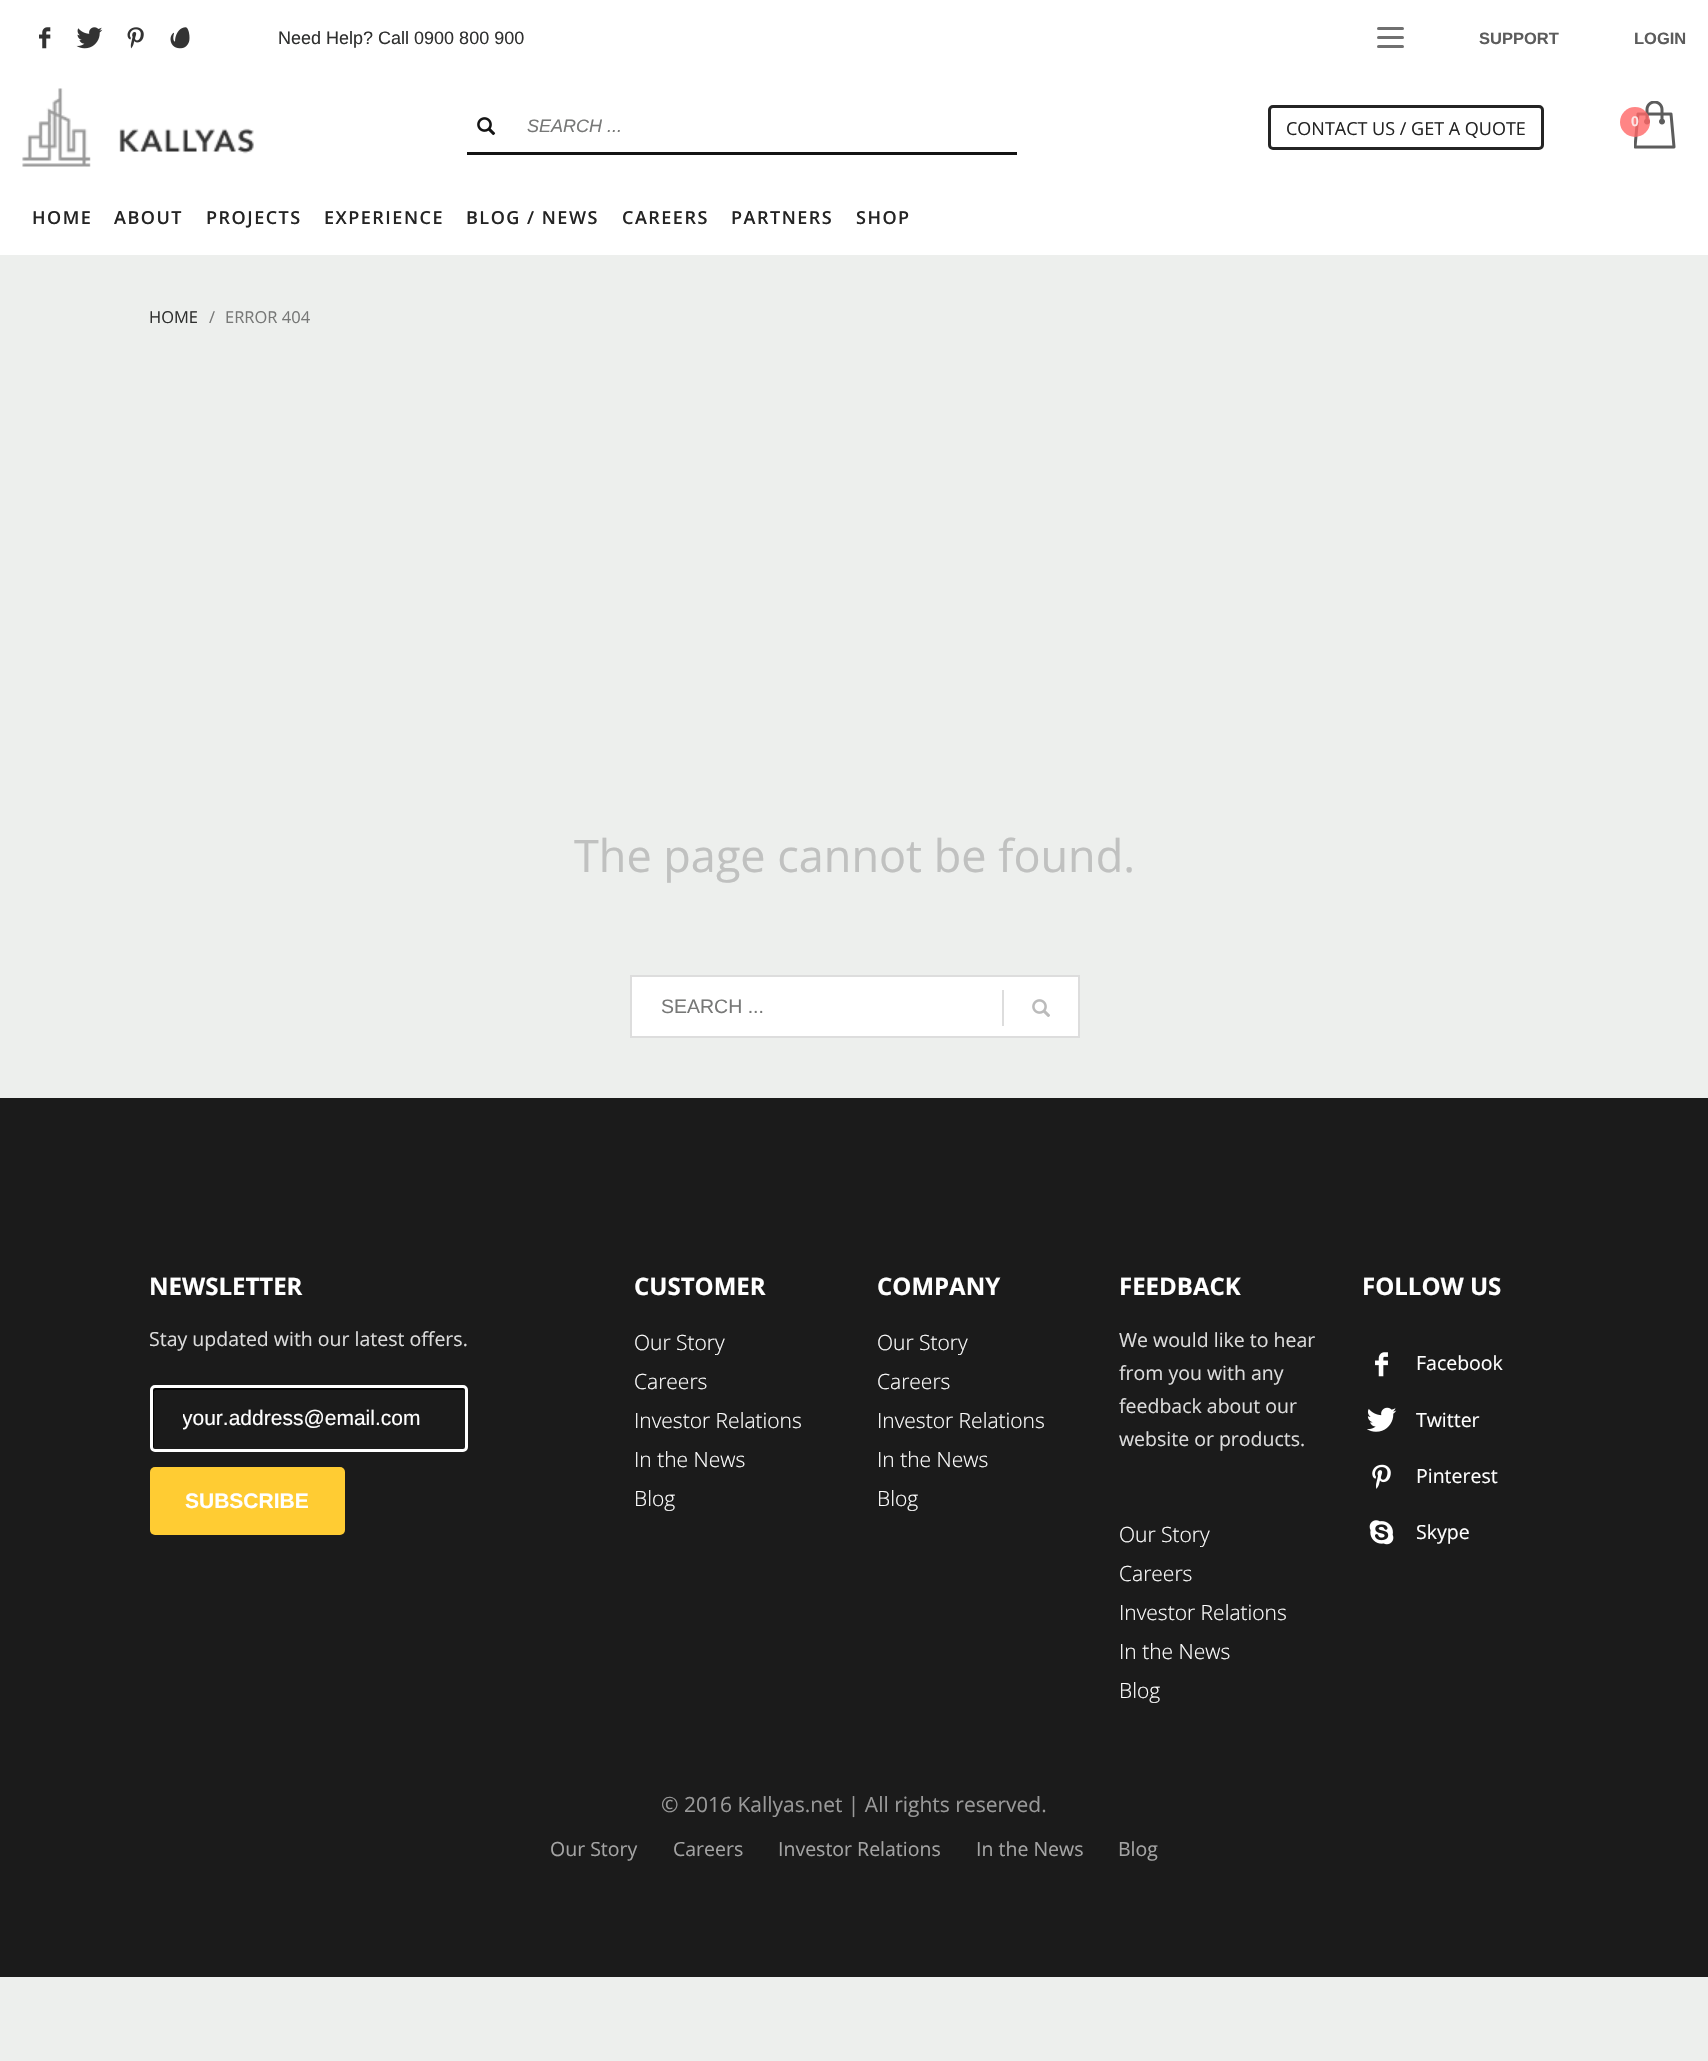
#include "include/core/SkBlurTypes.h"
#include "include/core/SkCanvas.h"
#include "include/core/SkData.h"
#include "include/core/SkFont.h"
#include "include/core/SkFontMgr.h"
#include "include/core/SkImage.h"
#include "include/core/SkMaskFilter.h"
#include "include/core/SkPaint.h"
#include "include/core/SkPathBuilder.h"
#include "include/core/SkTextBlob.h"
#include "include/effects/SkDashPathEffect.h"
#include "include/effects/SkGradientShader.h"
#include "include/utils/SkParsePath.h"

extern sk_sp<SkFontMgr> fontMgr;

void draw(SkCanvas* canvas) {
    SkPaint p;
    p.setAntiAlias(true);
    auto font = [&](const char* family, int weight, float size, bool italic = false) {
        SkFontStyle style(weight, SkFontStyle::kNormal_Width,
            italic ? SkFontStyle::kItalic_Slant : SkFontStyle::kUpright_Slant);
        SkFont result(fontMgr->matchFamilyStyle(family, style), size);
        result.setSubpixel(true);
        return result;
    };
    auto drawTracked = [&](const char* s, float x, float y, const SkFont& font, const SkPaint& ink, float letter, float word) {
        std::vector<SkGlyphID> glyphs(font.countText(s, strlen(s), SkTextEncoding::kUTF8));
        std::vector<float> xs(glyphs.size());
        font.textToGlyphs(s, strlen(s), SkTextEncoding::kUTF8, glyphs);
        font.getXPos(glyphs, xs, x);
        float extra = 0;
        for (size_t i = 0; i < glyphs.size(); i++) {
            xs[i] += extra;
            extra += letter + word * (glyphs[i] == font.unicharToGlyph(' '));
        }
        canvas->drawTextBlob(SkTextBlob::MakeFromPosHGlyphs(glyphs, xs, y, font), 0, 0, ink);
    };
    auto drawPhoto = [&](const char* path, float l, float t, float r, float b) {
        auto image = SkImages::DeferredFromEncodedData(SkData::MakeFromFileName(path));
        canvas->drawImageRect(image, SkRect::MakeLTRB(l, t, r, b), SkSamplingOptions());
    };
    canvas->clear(0xFFEDEFED);
    p.setColor(0xFFFFFFFF);
    canvas->drawRect(SkRect::MakeLTRB(0, 0, 1708, 255), p);
    drawPhoto("media/1.png", 39, 27, 51, 49);
    drawPhoto("media/2.png", 76, 27, 103, 49);
    drawPhoto("media/3.png", 127, 27, 144, 49);
    drawPhoto("media/4.png", 170, 27, 190, 49);
    auto font1 = font("Liberation Sans", 400, 18);
    p.setColor(0xFF2F302F);
    canvas->drawString("Need Help? Call 0900 800 900", 278, 44, font1, p);
    p.setColor(0xFF707070);
    canvas->drawRoundRect(SkRect::MakeLTRB(1377, 45, 1404, 48), 1.5f, 1.5f, p);
    canvas->drawRoundRect(SkRect::MakeLTRB(1377, 36, 1404, 39), 1.5f, 1.5f, p);
    canvas->drawRoundRect(SkRect::MakeLTRB(1377, 27, 1404, 30), 1.5f, 1.5f, p);
    auto font2 = font("Liberation Sans", 700, 16.5f);
    p.setColor(0xFF5C5C5C);
    canvas->drawString("SUPPORT", 1479, 44, font2, p);
    canvas->drawString("LOGIN", 1634, 44, font2, p);
    drawPhoto("media/5.png", 22, 88, 254, 167);
    drawPhoto("media/6.png", 477, 117, 496, 136);
    p.setColor(0xFF141414);
    canvas->drawRect(SkRect::MakeLTRB(467, 152, 1017, 155), p);
    auto font3 = font("Liberation Sans", 400, 18, true);
    p.setColor(0xFF777877);
    canvas->drawString("SEARCH ...", 527, 132, font3, p);
    p.setStyle(SkPaint::kStroke_Style);
    p.setStrokeWidth(3);
    p.setColor(0xFF242424);
    canvas->drawRoundRect(SkRect::MakeLTRB(1269.5f, 106.5f, 1542.5f, 148.5f), 3.5f, 3.5f, p);
    auto font4 = font("Open Sans", 400, 18);
    p.setStyle(SkPaint::kFill_Style);
    canvas->drawString("CONTACT US / GET A QUOTE", 1286, 135, font4, p);
    drawPhoto("media/7.png", 1634, 101, 1676, 149);
    p.setColor(0xCCFF6666);
    canvas->drawCircle(1635, 122, 15, p);
    auto font5 = font("Liberation Sans", 700, 14);
    p.setColor(0xFFFDE5E5);
    canvas->drawString("0", 1631, 126, font5, p);
    auto font6 = font("Open Sans", 600, 18);
    p.setColor(0xFF242424);
    {
        const struct { const char* s; float x, y; } items[] = {
            {"HOME", 32, 224},
            {"ABOUT", 114, 224},
            {"PROJECTS", 206, 224},
            {"EXPERIENCE", 324, 224},
            {"BLOG / NEWS", 466, 224},
            {"CAREERS", 622, 224},
            {"PARTNERS", 731, 224},
            {"SHOP", 856, 224},
        };
        for (auto [s, x, y] : items) {
            drawTracked(s, x, y, font6, p, 1.5f, 0);
        }
    }
    auto font7 = font("Open Sans", 400, 16.5f);
    p.setColor(0xFF2F302F);
    canvas->drawString("HOME", 149, 323, font7, p);
    p.setColor(0xFF777877);
    canvas->drawString("/", 209, 323, font7, p);
    canvas->drawString("ERROR 404", 225, 323, font7, p);
    auto font8 = font("Open Sans", 400, 45);
    p.setColor(0xFFC0C1C0);
    canvas->drawString("The page cannot be found.", 574, 872, font8, p);
    p.setColor(0xFFFFFFFF);
    canvas->drawRect(SkRect::MakeLTRB(631, 976, 1079, 1037), p);
    p.setStyle(SkPaint::kStroke_Style);
    p.setStrokeWidth(2);
    p.setColor(0xFFDDDDDD);
    canvas->drawRect(SkRect::MakeLTRB(631, 976, 1079, 1037), p);
    auto font9 = font("Liberation Sans", 400, 19.5f);
    p.setStyle(SkPaint::kFill_Style);
    p.setColor(0xFF777877);
    canvas->drawString("SEARCH ...", 661, 1013, font9, p);
    p.setColor(0xFFDDDDDD);
    canvas->drawRect(SkRect::MakeLTRB(1002, 990, 1004, 1026), p);
    drawPhoto("media/8.png", 1032, 999, 1050, 1017);
    p.setColor(0xFF1B1B1B);
    canvas->drawRect(SkRect::MakeLTRB(0, 1098, 1708, 1977), p);
    auto font10 = font("Open Sans", 700, 24);
    p.setColor(0xFFFFFFFF);
    canvas->drawString("NEWSLETTER", 149, 1295, font10, p);
    auto font11 = font("Open Sans", 400, 19.5f);
    p.setColor(0xFFDCDCDC);
    canvas->drawString("Stay updated with our latest offers.", 149, 1346, font11, p);
    p.setColor(0xFF040404);
    canvas->drawPath(SkPathBuilder().moveTo(156, 1390).lineTo(465, 1390).lineTo(465, 1389).lineTo(464, 1388).lineTo(154, 1388).cubicTo(154, 1388, 153, 1389, 153, 1390).cubicTo(153, 1395, 153, 1448, 153, 1449).lineTo(154, 1449).lineTo(154, 1392).cubicTo(154, 1391, 155, 1390, 156, 1390).close().detach(), p);
    p.setStyle(SkPaint::kStroke_Style);
    p.setStrokeWidth(3);
    p.setColor(0xFFFFFFFF);
    canvas->drawRoundRect(SkRect::MakeLTRB(151.5f, 1386.5f, 466.5f, 1450.5f), 3.5f, 3.5f, p);
    canvas->save();
    canvas->clipRect(SkRect::MakeLTRB(183, 1406, 447, 1430));
    auto font12 = font("Liberation Sans", 400, 21);
    p.setStyle(SkPaint::kFill_Style);
    canvas->drawString("your.address@email.com", 182, 1425, font12, p);
    canvas->restore();
    p.setColor(0xFFFFCC33);
    canvas->drawRoundRect(SkRect::MakeLTRB(150, 1467, 345, 1535), 5, 5, p);
    auto font13 = font("Liberation Sans", 700, 21);
    p.setColor(0xFFFFFFFF);
    canvas->drawString("SUBSCRIBE", 185, 1508, font13, p);
    canvas->drawString("CUSTOMER", 634, 1295, font10, p);
    auto font14 = font("Open Sans", 300, 21);
    {
        const struct { const char* s; float x, y; } items[] = {
            {"Our Story", 634, 1350},
            {"Careers", 634, 1389},
            {"Investor Relations", 634, 1428},
            {"In the News", 634, 1467},
            {"Blog", 634, 1506},
        };
        for (auto [s, x, y] : items) {
            canvas->drawString(s, x, y, font14, p);
        }
    }
    canvas->drawString("COMPANY", 877, 1295, font10, p);
    {
        const struct { const char* s; float x, y; } items[] = {
            {"Our Story", 877, 1350},
            {"Careers", 877, 1389},
            {"Investor Relations", 877, 1428},
            {"In the News", 877, 1467},
            {"Blog", 877, 1506},
        };
        for (auto [s, x, y] : items) {
            canvas->drawString(s, x, y, font14, p);
        }
    }
    canvas->drawString("FEEDBACK", 1119, 1295, font10, p);
    p.setColor(0xFFDCDCDC);
    {
        const struct { const char* s; float x, y; } items[] = {
            {"We would like to hear", 1119, 1347},
            {"from you with any", 1119, 1380},
            {"feedback about our", 1119, 1413},
            {"website or products.", 1119, 1446},
        };
        for (auto [s, x, y] : items) {
            canvas->drawString(s, x, y, font11, p);
        }
    }
    p.setColor(0xFFFFFFFF);
    {
        const struct { const char* s; float x, y; } items[] = {
            {"Our Story", 1119, 1542},
            {"Careers", 1119, 1581},
            {"Investor Relations", 1119, 1620},
            {"In the News", 1119, 1659},
            {"Blog", 1119, 1698},
        };
        for (auto [s, x, y] : items) {
            canvas->drawString(s, x, y, font14, p);
        }
    }
    canvas->drawString("FOLLOW US", 1362, 1295, font10, p);
    drawPhoto("media/9.png", 1375, 1352, 1388, 1377);
    canvas->drawString("Facebook", 1416, 1370, font11, p);
    drawPhoto("media/10.png", 1367, 1407, 1397, 1432);
    canvas->drawString("Twitter", 1416, 1427, font11, p);
    drawPhoto("media/11.png", 1372, 1464, 1391, 1489);
    canvas->drawString("Pinterest", 1416, 1483, font11, p);
    drawPhoto("media/12.png", 1369, 1520, 1394, 1545);
    canvas->drawString("Skype", 1416, 1539, font11, p);
    auto font15 = font("Open Sans", 400, 21);
    p.setColor(0xFF999999);
    canvas->drawString("© 2016 Kallyas.net | All rights reserved.", 661, 1812, font15, p);
    p.setColor(0xFFA4A4A4);
    {
        const struct { const char* s; float x, y; } items[] = {
            {"Our Story", 550, 1856},
            {"Careers", 673, 1856},
            {"Investor Relations", 778, 1856},
            {"In the News", 976, 1856},
            {"Blog", 1118, 1856},
        };
        for (auto [s, x, y] : items) {
            canvas->drawString(s, x, y, font11, p);
        }
    }
}
